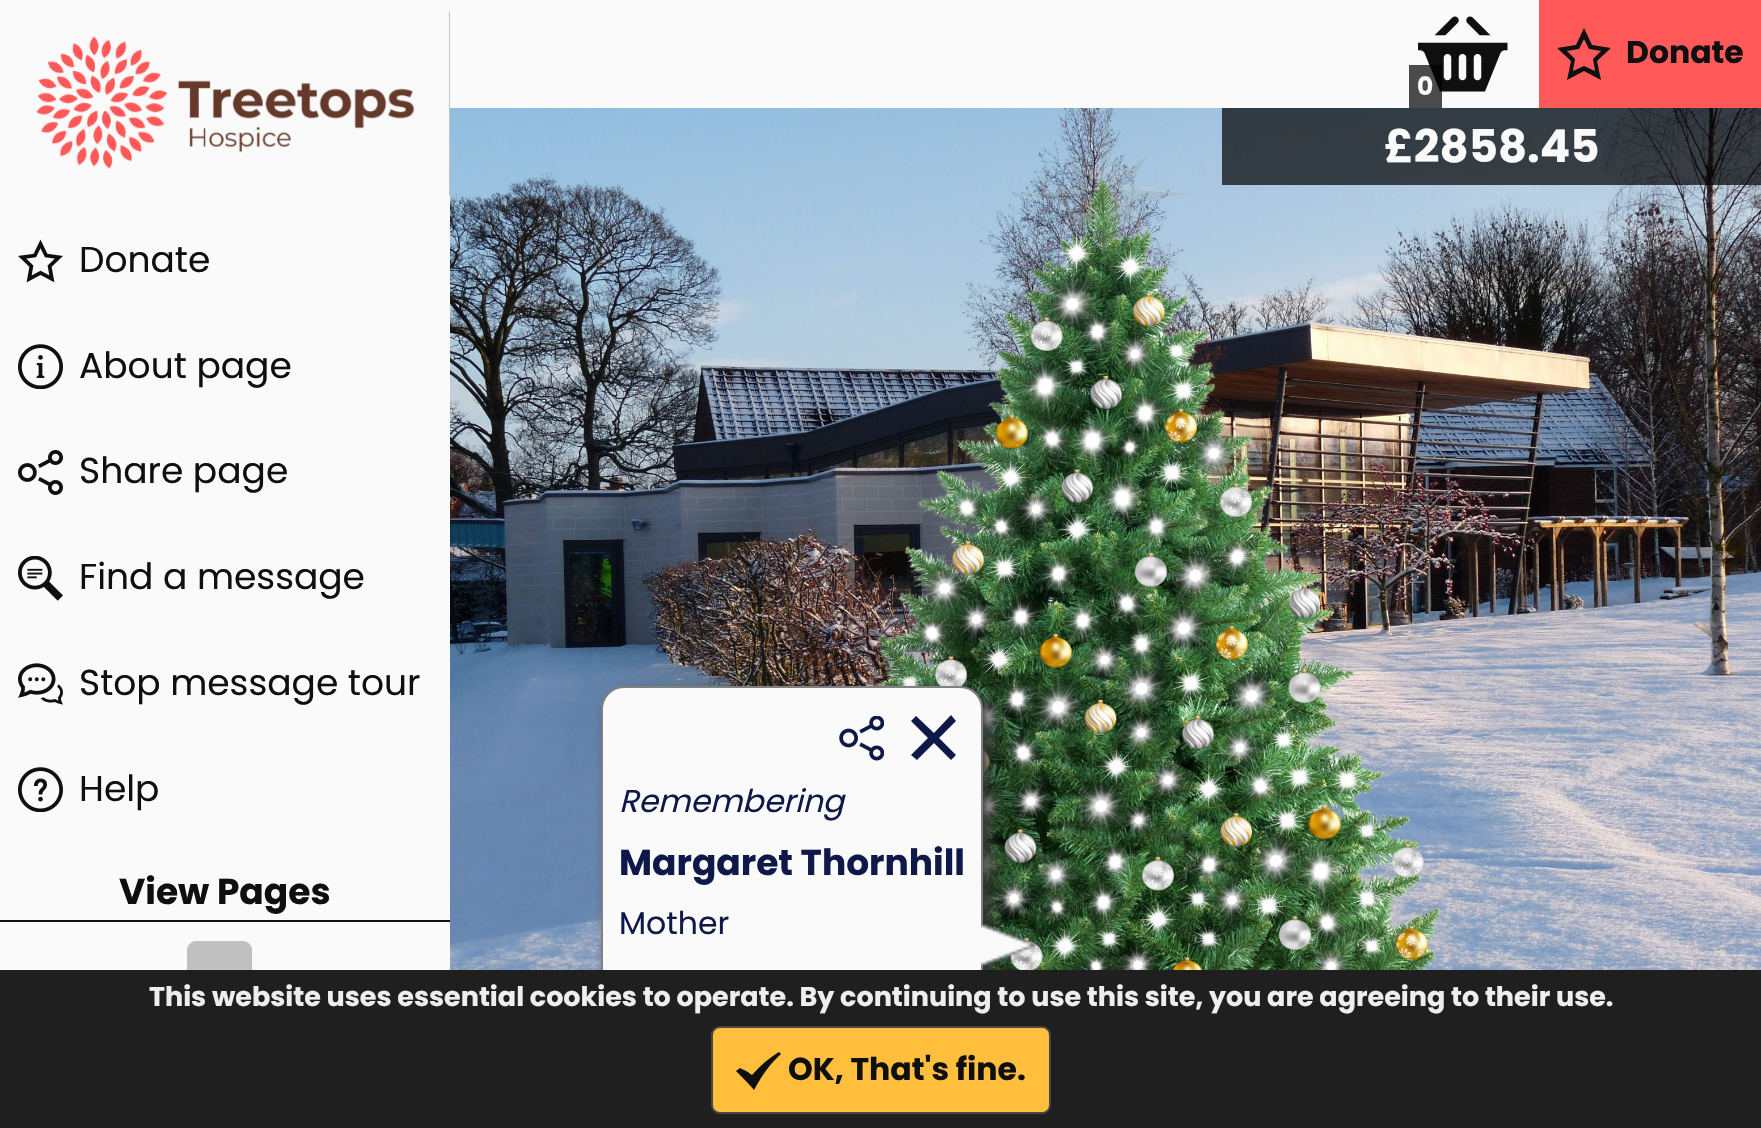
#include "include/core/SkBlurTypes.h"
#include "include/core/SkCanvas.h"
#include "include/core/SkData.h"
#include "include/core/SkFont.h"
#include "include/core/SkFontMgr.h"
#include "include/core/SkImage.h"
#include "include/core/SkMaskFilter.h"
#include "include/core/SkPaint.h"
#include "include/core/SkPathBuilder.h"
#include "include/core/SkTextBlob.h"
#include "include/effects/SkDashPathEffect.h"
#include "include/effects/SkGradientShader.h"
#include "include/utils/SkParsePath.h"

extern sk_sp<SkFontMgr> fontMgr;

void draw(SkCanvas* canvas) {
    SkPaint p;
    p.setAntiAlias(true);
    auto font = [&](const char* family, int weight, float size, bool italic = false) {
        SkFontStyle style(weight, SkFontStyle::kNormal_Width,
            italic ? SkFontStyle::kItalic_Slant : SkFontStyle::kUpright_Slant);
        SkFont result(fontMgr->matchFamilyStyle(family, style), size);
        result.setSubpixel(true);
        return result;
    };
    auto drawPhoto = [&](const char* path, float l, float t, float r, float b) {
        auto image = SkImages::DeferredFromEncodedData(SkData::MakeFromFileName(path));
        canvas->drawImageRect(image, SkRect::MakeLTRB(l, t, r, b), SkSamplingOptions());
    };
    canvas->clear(0xFFFAFAFA);
    p.setColor(0xFFFF5959);
    canvas->drawRect(SkRect::MakeLTRB(1539, 0, 1761, 108), p);
    p.setColor(0xFF0F0F0F);
    canvas->drawPath(SkPathBuilder().moveTo(1584, 39).lineTo(1589, 49).lineTo(1601, 51).lineTo(1593, 59).lineTo(1595, 71).lineTo(1584, 66).lineTo(1573, 71).lineTo(1575, 59).lineTo(1567, 51).lineTo(1579, 49).close().moveTo(1584, 28).lineTo(1576, 45).lineTo(1557, 48).lineTo(1571, 61).lineTo(1567, 80).lineTo(1584, 71).lineTo(1601, 80).lineTo(1597, 61).lineTo(1611, 48).lineTo(1592, 45).close().detach(), p);
    auto font1 = font("Poppins", 700, 31.5f);
    canvas->drawString("Donate", 1626, 63, font1, p);
    drawPhoto("media/1.png", 1418, 16, 1508, 92);
    p.setColor(0xB3000000);
    canvas->drawRect(SkRect::MakeLTRB(1409, 65, 1442, 108), p);
    auto font2 = font("Poppins", 700, 25);
    p.setColor(0xFFFAFAFA);
    canvas->drawString("0", 1417, 95, font2, p);
    drawPhoto("media/2.png", 450, 108, 1761, 970);
    drawPhoto("media/3.png", 877, 120, 1441, 970);
    p.setColor(0xB3000000);
    canvas->drawRect(SkRect::MakeLTRB(1222, 108, 1761, 185), p);
    auto font3 = font("Poppins", 700, 45);
    p.setColor(0xFFFAFAFA);
    canvas->drawString("£2858.45", 1384, 162, font3, p);
    drawPhoto("media/4.png", 36, 11, 450, 196);
    drawPhoto("media/5.png", 18, 239, 63, 283);
    auto font4 = font("Poppins", 400, 36);
    p.setColor(0xFF0F0F0F);
    canvas->drawString("Donate", 79, 272, font4, p);
    drawPhoto("media/6.png", 18, 344, 63, 389);
    canvas->drawString("About page", 79, 378, font4, p);
    drawPhoto("media/7.png", 18, 450, 63, 495);
    canvas->drawString("Share page", 79, 483, font4, p);
    drawPhoto("media/8.png", 18, 556, 63, 601);
    canvas->drawString("Find a message", 79, 589, font4, p);
    drawPhoto("media/9.png", 18, 663, 63, 705);
    canvas->drawString("Stop message tour", 79, 695, font4, p);
    drawPhoto("media/10.png", 18, 767, 63, 812);
    canvas->drawString("Help", 79, 801, font4, p);
    canvas->drawRect(SkRect::MakeLTRB(0, 920, 450, 922), p);
    auto font5 = font("Poppins", 700, 36);
    canvas->drawString("View Pages", 119, 904, font5, p);
    p.setColor(0xFFC0C0C0);
    canvas->drawRoundRect(SkRect::MakeLTRB(187, 941, 252, 1015), 9, 9, p);
    p.setColor(0xFF333333);
    p.setMaskFilter(SkMaskFilter::MakeBlur(kNormal_SkBlurStyle, 7));
    canvas->drawRoundRect(SkRect::MakeLTRB(608, 695, 990, 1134), 23, 23, p);
    p.setMaskFilter(nullptr);
    p.setColor(0xFFFAFAFA);
    canvas->drawRoundRect(SkRect::MakeLTRB(602, 687, 982, 1124), 22, 22, p);
    p.setStyle(SkPaint::kStroke_Style);
    p.setStrokeWidth(2);
    p.setColor(0xFF808080);
    canvas->drawRoundRect(SkRect::MakeLTRB(602, 687, 982, 1124), 22, 22, p);
    drawPhoto("media/11.png", 839, 716, 884, 761);
    p.setStyle(SkPaint::kFill_Style);
    p.setColor(0xFF0E194A);
    canvas->drawPath(SkPathBuilder().moveTo(956, 755).lineTo(939, 738).lineTo(956, 721).lineTo(951, 715).lineTo(934, 733).lineTo(916, 716).lineTo(911, 721).lineTo(928, 738).lineTo(911, 755).lineTo(917, 760).lineTo(934, 743).lineTo(951, 760).close().detach(), p);
    auto font6 = font("Poppins", 400, 31.5f, true);
    canvas->drawString("Remembering", 619, 812, font6, p);
    canvas->drawString("Margaret Thornhill", 619, 875, font5, p);
    auto font7 = font("Poppins", 400, 31.5f);
    canvas->drawString("Mother", 619, 934, font7, p);
    drawPhoto("media/12.png", 981, 924, 1035, 966);
    p.setColor(0xFF1F1F1F);
    canvas->drawRect(SkRect::MakeLTRB(0, 970, 1761, 1128), p);
    auto font8 = font("Poppins", 700, 27);
    p.setColor(0xFFEEEEEE);
    canvas->drawString("This website uses essential cookies to operate. By continuing to use this site, you are agreeing to their use.", 149, 1006, font8, p);
    p.setColor(0xFFFFBF3C);
    canvas->drawRoundRect(SkRect::MakeLTRB(712, 1027, 1050, 1113), 8, 8, p);
    p.setStyle(SkPaint::kStroke_Style);
    p.setColor(0xFF474747);
    canvas->drawRoundRect(SkRect::MakeLTRB(712, 1027, 1050, 1113), 8, 8, p);
    p.setStyle(SkPaint::kFill_Style);
    p.setColor(0xFF0F0F0F);
    canvas->drawPath(SkPathBuilder().moveTo(736, 1071).lineTo(740, 1068).cubicTo(744, 1070, 747, 1071, 752, 1075).cubicTo(762, 1064, 768, 1059, 779, 1052).lineTo(781, 1054).cubicTo(771, 1063, 764, 1072, 754, 1090).cubicTo(748, 1083, 743, 1078, 736, 1071).close().detach(), p);
    canvas->drawString("OK, That's fine.", 788, 1080, font1, p);
}
